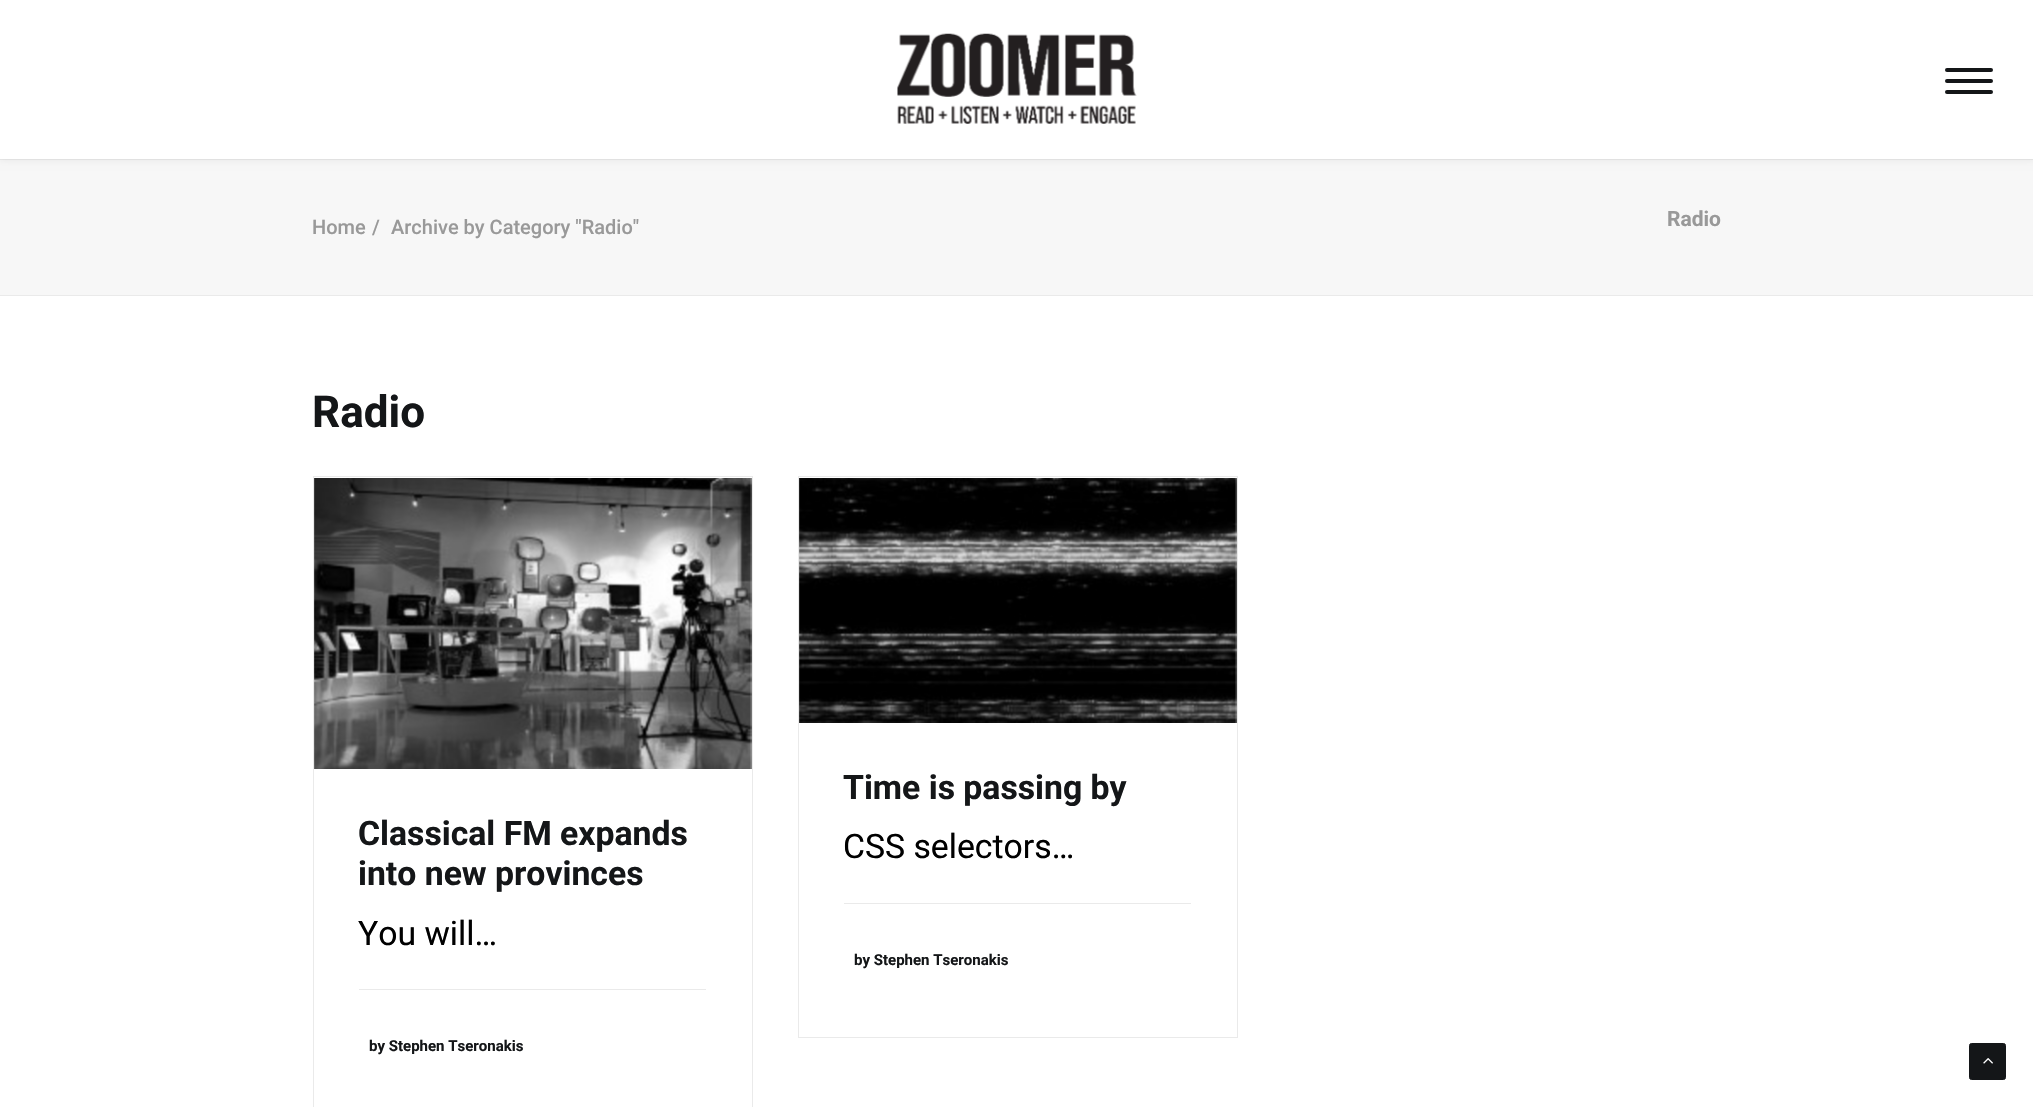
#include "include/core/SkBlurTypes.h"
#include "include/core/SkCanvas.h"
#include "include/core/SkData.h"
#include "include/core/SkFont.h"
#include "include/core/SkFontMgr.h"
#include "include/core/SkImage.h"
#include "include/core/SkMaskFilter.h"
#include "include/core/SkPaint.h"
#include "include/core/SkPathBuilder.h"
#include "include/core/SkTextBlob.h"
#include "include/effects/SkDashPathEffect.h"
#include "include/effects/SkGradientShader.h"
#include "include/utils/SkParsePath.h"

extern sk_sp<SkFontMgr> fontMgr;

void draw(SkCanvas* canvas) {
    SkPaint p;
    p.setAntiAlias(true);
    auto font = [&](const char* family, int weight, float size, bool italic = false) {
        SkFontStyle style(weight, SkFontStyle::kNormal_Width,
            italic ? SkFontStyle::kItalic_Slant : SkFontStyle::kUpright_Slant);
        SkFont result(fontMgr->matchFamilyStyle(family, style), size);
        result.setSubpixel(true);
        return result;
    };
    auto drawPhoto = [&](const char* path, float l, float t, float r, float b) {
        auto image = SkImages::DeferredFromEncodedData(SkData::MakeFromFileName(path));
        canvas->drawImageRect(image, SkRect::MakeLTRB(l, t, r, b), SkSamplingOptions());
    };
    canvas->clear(0xFFF7F7F7);
    p.setColor(0xFFEAEAEA);
    canvas->drawRect(SkRect::MakeLTRB(0, 159, 2033, 160), p);
    p.setColor(0x1A000000);
    p.setMaskFilter(SkMaskFilter::MakeBlur(kNormal_SkBlurStyle, 4.5f));
    canvas->drawRect(SkRect::MakeLTRB(-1, 1, 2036, 158), p);
    p.setMaskFilter(nullptr);
    p.setColor(0xFFFFFFFF);
    canvas->drawRect(SkRect::MakeLTRB(0, 0, 2033, 159), p);
    drawPhoto("media/1.png", 897, 33, 1137, 124);
    p.setColor(0xFF141618);
    canvas->drawRoundRect(SkRect::MakeLTRB(1945, 79, 1993, 83), 2, 2, p);
    canvas->drawRoundRect(SkRect::MakeLTRB(1945, 68, 1993, 72), 2, 2, p);
    canvas->drawRoundRect(SkRect::MakeLTRB(1945, 90, 1993, 94), 2, 2, p);
    p.setColor(0xFFEAEAEA);
    canvas->drawRect(SkRect::MakeLTRB(0, 295, 2033, 296), p);
    auto font1 = font("Roboto", 500, 20);
    p.setColor(0xFF999999);
    {
        const struct { const char* s; float x, y; } items[] = {
            {"Home", 312, 234},
            {"/", 372, 234},
            {"Archive by Category \"Radio\"", 391, 234},
        };
        for (auto [s, x, y] : items) {
            canvas->drawString(s, x, y, font1, p);
        }
    }
    auto font2 = font("Roboto", 700, 21);
    canvas->drawString("Radio", 1667, 226, font2, p);
    p.setColor(0xFFFFFFFF);
    canvas->drawRect(SkRect::MakeLTRB(0, 296, 2033, 1107), p);
    auto font3 = font("Roboto", 700, 44);
    p.setColor(0xFF141618);
    canvas->drawString("Radio", 312, 427, font3, p);
    p.setStyle(SkPaint::kStroke_Style);
    p.setStrokeWidth(1);
    p.setColor(0xFFEAEAEA);
    canvas->drawRect(SkRect::MakeLTRB(313.5f, 476.5f, 752.5f, 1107.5f), p);
    drawPhoto("media/2.png", 314, 478, 752, 769);
    auto font4 = font("Roboto", 700, 33.75f);
    p.setStyle(SkPaint::kFill_Style);
    p.setColor(0xFF141618);
    canvas->drawString("Classical FM expands", 358, 845, font4, p);
    canvas->drawString("into new provinces", 358, 885, font4, p);
    auto font5 = font("Roboto", 400, 33.75f);
    p.setColor(0xFF000000);
    canvas->drawString("You will…", 358, 945, font5, p);
    p.setColor(0xFFEAEAEA);
    canvas->drawRect(SkRect::MakeLTRB(359, 989, 706, 990), p);
    auto font6 = font("Roboto", 700, 15);
    p.setColor(0xFF141618);
    canvas->drawString("by Stephen Tseronakis", 369, 1051, font6, p);
    p.setStyle(SkPaint::kStroke_Style);
    p.setColor(0xFFEAEAEA);
    canvas->drawRect(SkRect::MakeLTRB(798.5f, 476.5f, 1237.5f, 1037.5f), p);
    drawPhoto("media/3.png", 799, 478, 1237, 723);
    p.setStyle(SkPaint::kFill_Style);
    p.setColor(0xFF141618);
    canvas->drawString("Time is passing by", 843, 799, font4, p);
    p.setColor(0xFF000000);
    canvas->drawString("CSS selectors…", 843, 858, font5, p);
    p.setColor(0xFFEAEAEA);
    canvas->drawRect(SkRect::MakeLTRB(844, 903, 1191, 904), p);
    p.setColor(0xFF141618);
    canvas->drawString("by Stephen Tseronakis", 854, 965, font6, p);
    canvas->drawRoundRect(SkRect::MakeLTRB(1969.5f, 1043.5f, 2005.5f, 1079.5f), 2, 2, p);
    p.setStyle(SkPaint::kStroke_Style);
    canvas->drawRoundRect(SkRect::MakeLTRB(1969.5f, 1043.5f, 2005.5f, 1079.5f), 2, 2, p);
    drawPhoto("media/4.png", 1983, 1058, 1993, 1064);
}
